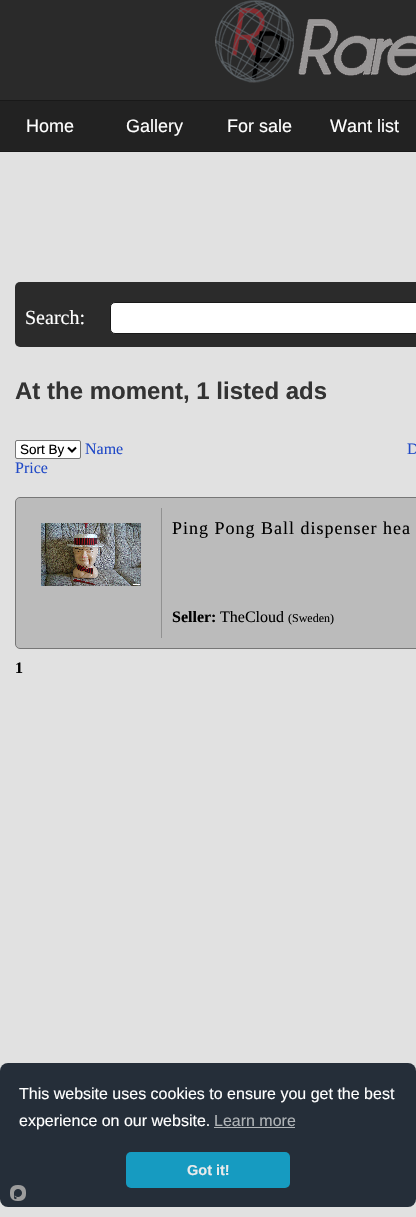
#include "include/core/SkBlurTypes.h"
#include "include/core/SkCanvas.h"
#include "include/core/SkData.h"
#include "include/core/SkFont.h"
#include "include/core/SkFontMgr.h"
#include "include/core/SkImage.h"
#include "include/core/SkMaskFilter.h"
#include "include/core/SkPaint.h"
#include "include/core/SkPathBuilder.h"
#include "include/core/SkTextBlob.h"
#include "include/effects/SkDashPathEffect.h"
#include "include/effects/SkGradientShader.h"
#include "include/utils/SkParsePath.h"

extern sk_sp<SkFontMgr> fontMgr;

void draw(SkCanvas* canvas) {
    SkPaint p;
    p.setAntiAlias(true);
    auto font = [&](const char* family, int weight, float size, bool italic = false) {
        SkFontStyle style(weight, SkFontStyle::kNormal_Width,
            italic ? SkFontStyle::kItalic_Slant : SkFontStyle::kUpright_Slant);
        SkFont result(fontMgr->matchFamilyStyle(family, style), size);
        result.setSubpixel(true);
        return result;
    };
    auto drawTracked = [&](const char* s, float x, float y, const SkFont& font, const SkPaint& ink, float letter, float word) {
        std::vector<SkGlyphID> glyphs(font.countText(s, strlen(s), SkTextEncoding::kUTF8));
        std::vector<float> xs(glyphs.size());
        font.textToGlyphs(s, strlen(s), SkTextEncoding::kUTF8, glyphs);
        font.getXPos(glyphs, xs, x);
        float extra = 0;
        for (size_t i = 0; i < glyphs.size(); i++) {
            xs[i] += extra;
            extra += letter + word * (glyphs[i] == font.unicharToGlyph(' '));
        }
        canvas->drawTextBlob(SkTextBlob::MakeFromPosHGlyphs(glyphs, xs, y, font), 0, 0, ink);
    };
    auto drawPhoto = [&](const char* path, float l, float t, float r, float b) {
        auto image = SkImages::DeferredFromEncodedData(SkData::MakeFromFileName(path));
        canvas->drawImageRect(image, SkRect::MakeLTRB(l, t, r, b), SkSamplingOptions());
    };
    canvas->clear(0xFFE1E1E1);
    p.setColor(0xFF2A2A2A);
    canvas->drawRect(SkRect::MakeLTRB(0, 0, 416, 100), p);
    p.setColor(0xFF191919);
    canvas->drawRect(SkRect::MakeLTRB(0, 100, 416, 101), p);
    drawPhoto("media/1.png", 215, 0, 416, 83);
    p.setColor(0xFF222222);
    canvas->drawRect(SkRect::MakeLTRB(0, 101, 416, 151), p);
    p.setColor(0xFF191919);
    canvas->drawRect(SkRect::MakeLTRB(0, 151, 416, 152), p);
    auto font1 = font("Liberation Sans", 400, 18);
    p.setColor(0xFFFFFFFF);
    {
        const struct { const char* s; float x, y; } items[] = {
            {"Home", 26, 132},
            {"Gallery", 126, 132},
            {"For sale", 227, 132},
            {"Want list", 330, 132},
        };
        for (auto [s, x, y] : items) {
            canvas->drawString(s, x, y, font1, p);
        }
    }
    p.setColor(0xFF2B2B2B);
    canvas->drawRoundRect(SkRect::MakeLTRB(15, 282, 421, 347), 5, 5, p);
    auto font2 = font("Liberation Serif", 400, 20);
    p.setColor(0xFFFFFFFF);
    canvas->drawString("Search:", 25, 324, font2, p);
    canvas->drawRoundRect(SkRect::MakeLTRB(110.5f, 302.5f, 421.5f, 333.5f), 4.5f, 4.5f, p);
    p.setStyle(SkPaint::kStroke_Style);
    p.setStrokeWidth(1);
    p.setColor(0xFF191919);
    canvas->drawRoundRect(SkRect::MakeLTRB(110.5f, 302.5f, 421.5f, 333.5f), 4.5f, 4.5f, p);
    auto font3 = font("Liberation Sans", 700, 24);
    p.setStyle(SkPaint::kFill_Style);
    p.setColor(0xFF333333);
    canvas->drawString("At the moment, 1 listed ads", 15, 399, font3, p);
    p.setColor(0xFFFFFFFF);
    canvas->drawRoundRect(SkRect::MakeLTRB(15.5f, 440.5f, 80.5f, 458.5f), 1.5f, 1.5f, p);
    p.setStyle(SkPaint::kStroke_Style);
    p.setColor(0xFF767676);
    canvas->drawRoundRect(SkRect::MakeLTRB(15.5f, 440.5f, 80.5f, 458.5f), 1.5f, 1.5f, p);
    p.setStrokeWidth(2);
    p.setColor(0xFF000000);
    canvas->drawPath(SkPathBuilder().moveTo(68, 447.5f).lineTo(72, 451.5f).lineTo(76, 447.5f).detach(), p);
    auto font4 = font("Liberation Sans", 400, 13.5f);
    p.setStyle(SkPaint::kFill_Style);
    canvas->drawString("Sort By", 20, 454, font4, p);
    auto font5 = font("Liberation Serif", 400, 16);
    p.setColor(0xFF214AC7);
    {
        const struct { const char* s; float x, y; } items[] = {
            {"Name", 85, 454},
            {"D", 407, 454},
            {"Price", 15, 473},
        };
        for (auto [s, x, y] : items) {
            canvas->drawString(s, x, y, font5, p);
        }
    }
    p.setColor(0xFFBBBBBB);
    canvas->drawRoundRect(SkRect::MakeLTRB(15.5f, 497.5f, 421.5f, 648.5f), 4.5f, 4.5f, p);
    p.setStyle(SkPaint::kStroke_Style);
    p.setStrokeWidth(1);
    p.setColor(0xFF777777);
    canvas->drawRoundRect(SkRect::MakeLTRB(15.5f, 497.5f, 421.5f, 648.5f), 4.5f, 4.5f, p);
    drawPhoto("media/2.png", 41, 523, 141, 586);
    p.setStyle(SkPaint::kFill_Style);
    p.setColor(0xFF919191);
    canvas->drawRect(SkRect::MakeLTRB(161, 508, 162, 638), p);
    auto font6 = font("Liberation Serif", 400, 18);
    p.setColor(0xFF000000);
    drawTracked("Ping Pong Ball dispenser hea", 172, 534, font6, p, 1, 0);
    auto font7 = font("Liberation Serif", 700, 16);
    canvas->drawString("Seller:", 172, 622, font7, p);
    canvas->drawString("TheCloud", 220, 622, font5, p);
    auto font8 = font("Liberation Serif", 400, 12);
    canvas->drawString("(Sweden)", 288, 622, font8, p);
    canvas->drawString("1", 15, 673, font7, p);
    p.setColor(0xFF252E39);
    canvas->drawRoundRect(SkRect::MakeLTRB(0, 1063, 416, 1207), 8, 8, p);
    auto font9 = font("Liberation Sans", 400, 16);
    p.setColor(0xFFFFFFFF);
    canvas->drawString("This website uses cookies to ensure you get the best", 19, 1099, font9, p);
    canvas->drawString("experience on our website.", 19, 1126, font9, p);
    p.setColor(0xFFB0B4B7);
    canvas->drawString("Learn more", 214, 1126, font9, p);
    canvas->drawRect(SkRect::MakeLTRB(214, 1127, 295, 1128), p);
    p.setColor(0xFF169BC1);
    canvas->drawRoundRect(SkRect::MakeLTRB(126, 1152, 290, 1188), 5, 5, p);
    auto font10 = font("Liberation Sans", 700, 14.5f);
    p.setColor(0xFFE9EAEB);
    canvas->drawString("Got it!", 187, 1175, font10, p);
    drawPhoto("media/3.png", 10, 1185, 26, 1201);
}
